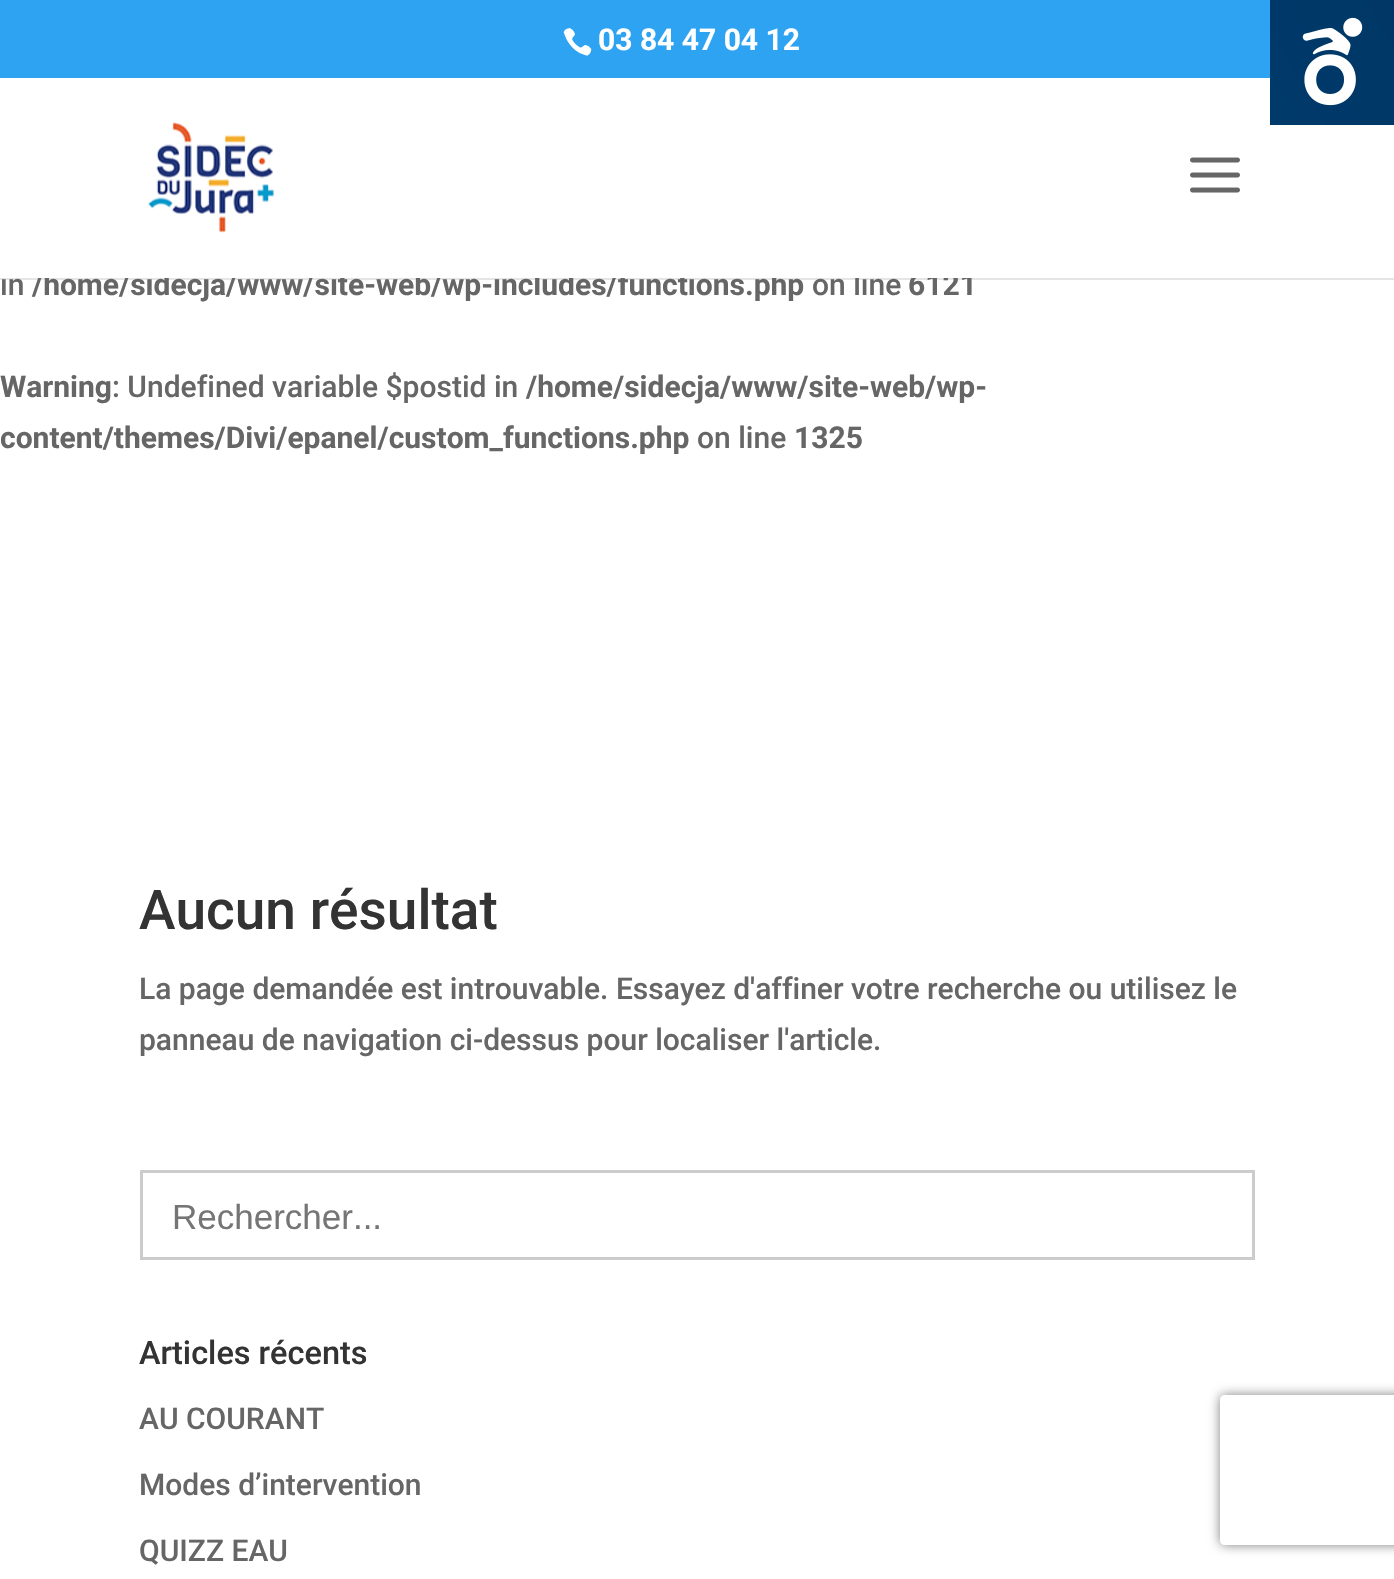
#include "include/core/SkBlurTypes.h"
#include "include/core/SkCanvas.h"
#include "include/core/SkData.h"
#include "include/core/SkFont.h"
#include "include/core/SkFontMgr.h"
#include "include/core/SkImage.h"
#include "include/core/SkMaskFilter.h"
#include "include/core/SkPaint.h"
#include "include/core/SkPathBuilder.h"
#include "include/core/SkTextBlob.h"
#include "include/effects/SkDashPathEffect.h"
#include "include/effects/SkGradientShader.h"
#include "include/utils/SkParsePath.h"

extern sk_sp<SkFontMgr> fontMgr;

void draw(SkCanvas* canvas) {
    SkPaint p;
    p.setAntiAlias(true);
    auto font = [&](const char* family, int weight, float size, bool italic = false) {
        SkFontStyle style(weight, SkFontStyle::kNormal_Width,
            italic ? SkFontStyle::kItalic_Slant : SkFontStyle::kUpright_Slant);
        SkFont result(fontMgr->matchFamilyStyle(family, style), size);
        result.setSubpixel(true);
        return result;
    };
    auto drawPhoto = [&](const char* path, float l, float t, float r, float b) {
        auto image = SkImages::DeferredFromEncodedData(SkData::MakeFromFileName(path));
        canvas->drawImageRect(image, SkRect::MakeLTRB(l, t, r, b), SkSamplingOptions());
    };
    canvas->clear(0xFFFFFFFF);
    p.setColor(0xFF2EA3F2);
    canvas->drawRect(SkRect::MakeLTRB(0, 0, 1270, 78), p);
    drawPhoto("media/1.png", 563, 28, 592, 56);
    auto font1 = font("Roboto", 700, 30);
    p.setColor(0xFFFFFFFF);
    canvas->drawString("03 84 47 04 12", 598, 50, font1, p);
    p.setColor(0x1A000000);
    canvas->drawRect(SkRect::MakeLTRB(0, 278, 1394, 280), p);
    auto font2 = font("Roboto", 500, 30);
    p.setColor(0xFF666666);
    canvas->drawString("in", 0, 295, font2, p);
    canvas->drawString("/home/sidecja/www/site-web/wp-includes/functions.php", 32, 295, font1, p);
    canvas->drawString("on line", 812, 295, font2, p);
    canvas->drawString("6121", 908, 295, font1, p);
    p.setColor(0xFFFFFFFF);
    canvas->drawRect(SkRect::MakeLTRB(1, 272, 972, 278), p);
    drawPhoto("media/2.png", 148, 122, 274, 233);
    drawPhoto("media/3.png", 1190, 157, 1240, 193);
    auto font3 = font("Roboto", 500, 55);
    p.setColor(0xFF333333);
    canvas->drawString("Aucun résultat", 139, 929, font3, p);
    p.setColor(0xFF666666);
    canvas->drawString("La page demandée est introuvable. Essayez d'affiner votre recherche ou utilisez le", 139, 999, font2, p);
    canvas->drawString("panneau de navigation ci-dessus pour localiser l'article.", 139, 1050, font2, p);
    p.setStyle(SkPaint::kStroke_Style);
    p.setStrokeWidth(3);
    p.setColor(0xFFCCCCCC);
    canvas->drawRect(SkRect::MakeLTRB(141.5f, 1171.5f, 1253.5f, 1258.5f), p);
    auto font4 = font("Liberation Sans", 400, 35);
    p.setStyle(SkPaint::kFill_Style);
    p.setColor(0xFF757575);
    canvas->drawString("Rechercher...", 172, 1229, font4, p);
    auto font5 = font("Roboto", 500, 32.5f);
    p.setColor(0xFF333333);
    canvas->drawString("Articles récents", 139, 1364, font5, p);
    p.setColor(0xFF666666);
    {
        const struct { const char* s; float x, y; } items[] = {
            {"AU COURANT", 139, 1429},
            {"Modes d’intervention", 139, 1495},
            {"QUIZZ EAU", 139, 1561},
        };
        for (auto [s, x, y] : items) {
            canvas->drawString(s, x, y, font2, p);
        }
    }
    {
        const SkColor colors[] = {0xFF003A6B, 0xFF002646};
        const float stops[] = {0, 1};
        const SkPoint ends[] = {{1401, 351}, {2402, -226}};
        p.setShader(SkGradientShader::MakeLinear(ends, colors, stops, 2, SkTileMode::kClamp));
        p.setAlpha(255);
    }
    canvas->drawRect(SkRect::MakeLTRB(1270, 0, 1394, 125), p);
    drawPhoto("media/4.png", 1302, 17, 1363, 106);
    p.setShader(nullptr);
    p.setColor(0xFF666666);
    canvas->drawString("Warning", 0, 397, font1, p);
    canvas->drawString(": Undefined variable $postid in", 112, 397, font2, p);
    canvas->drawString("/home/sidecja/www/site-web/wp-", 526, 397, font1, p);
    canvas->drawString("content/themes/Divi/epanel/custom_functions.php", 0, 448, font1, p);
    canvas->drawString("on line", 697, 448, font2, p);
    canvas->drawString("1325", 794, 448, font1, p);
    canvas->save();
    canvas->clipPath(SkPathBuilder(SkPathFillType::kEvenOdd).moveTo(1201, 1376).lineTo(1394, 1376).lineTo(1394, 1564).lineTo(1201, 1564).close().moveTo(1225, 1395).lineTo(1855, 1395).cubicTo(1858, 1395, 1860, 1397, 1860, 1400).lineTo(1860, 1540).cubicTo(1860, 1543, 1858, 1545, 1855, 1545).lineTo(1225, 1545).cubicTo(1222, 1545, 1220, 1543, 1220, 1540).lineTo(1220, 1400).cubicTo(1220, 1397, 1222, 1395, 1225, 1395).close().detach(), true);
    p.setColor(0xFF808080);
    p.setMaskFilter(SkMaskFilter::MakeBlur(kNormal_SkBlurStyle, 6));
    canvas->drawRoundRect(SkRect::MakeLTRB(1220, 1395, 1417, 1545), 5, 5, p);
    p.setMaskFilter(nullptr);
    canvas->restore();
}
